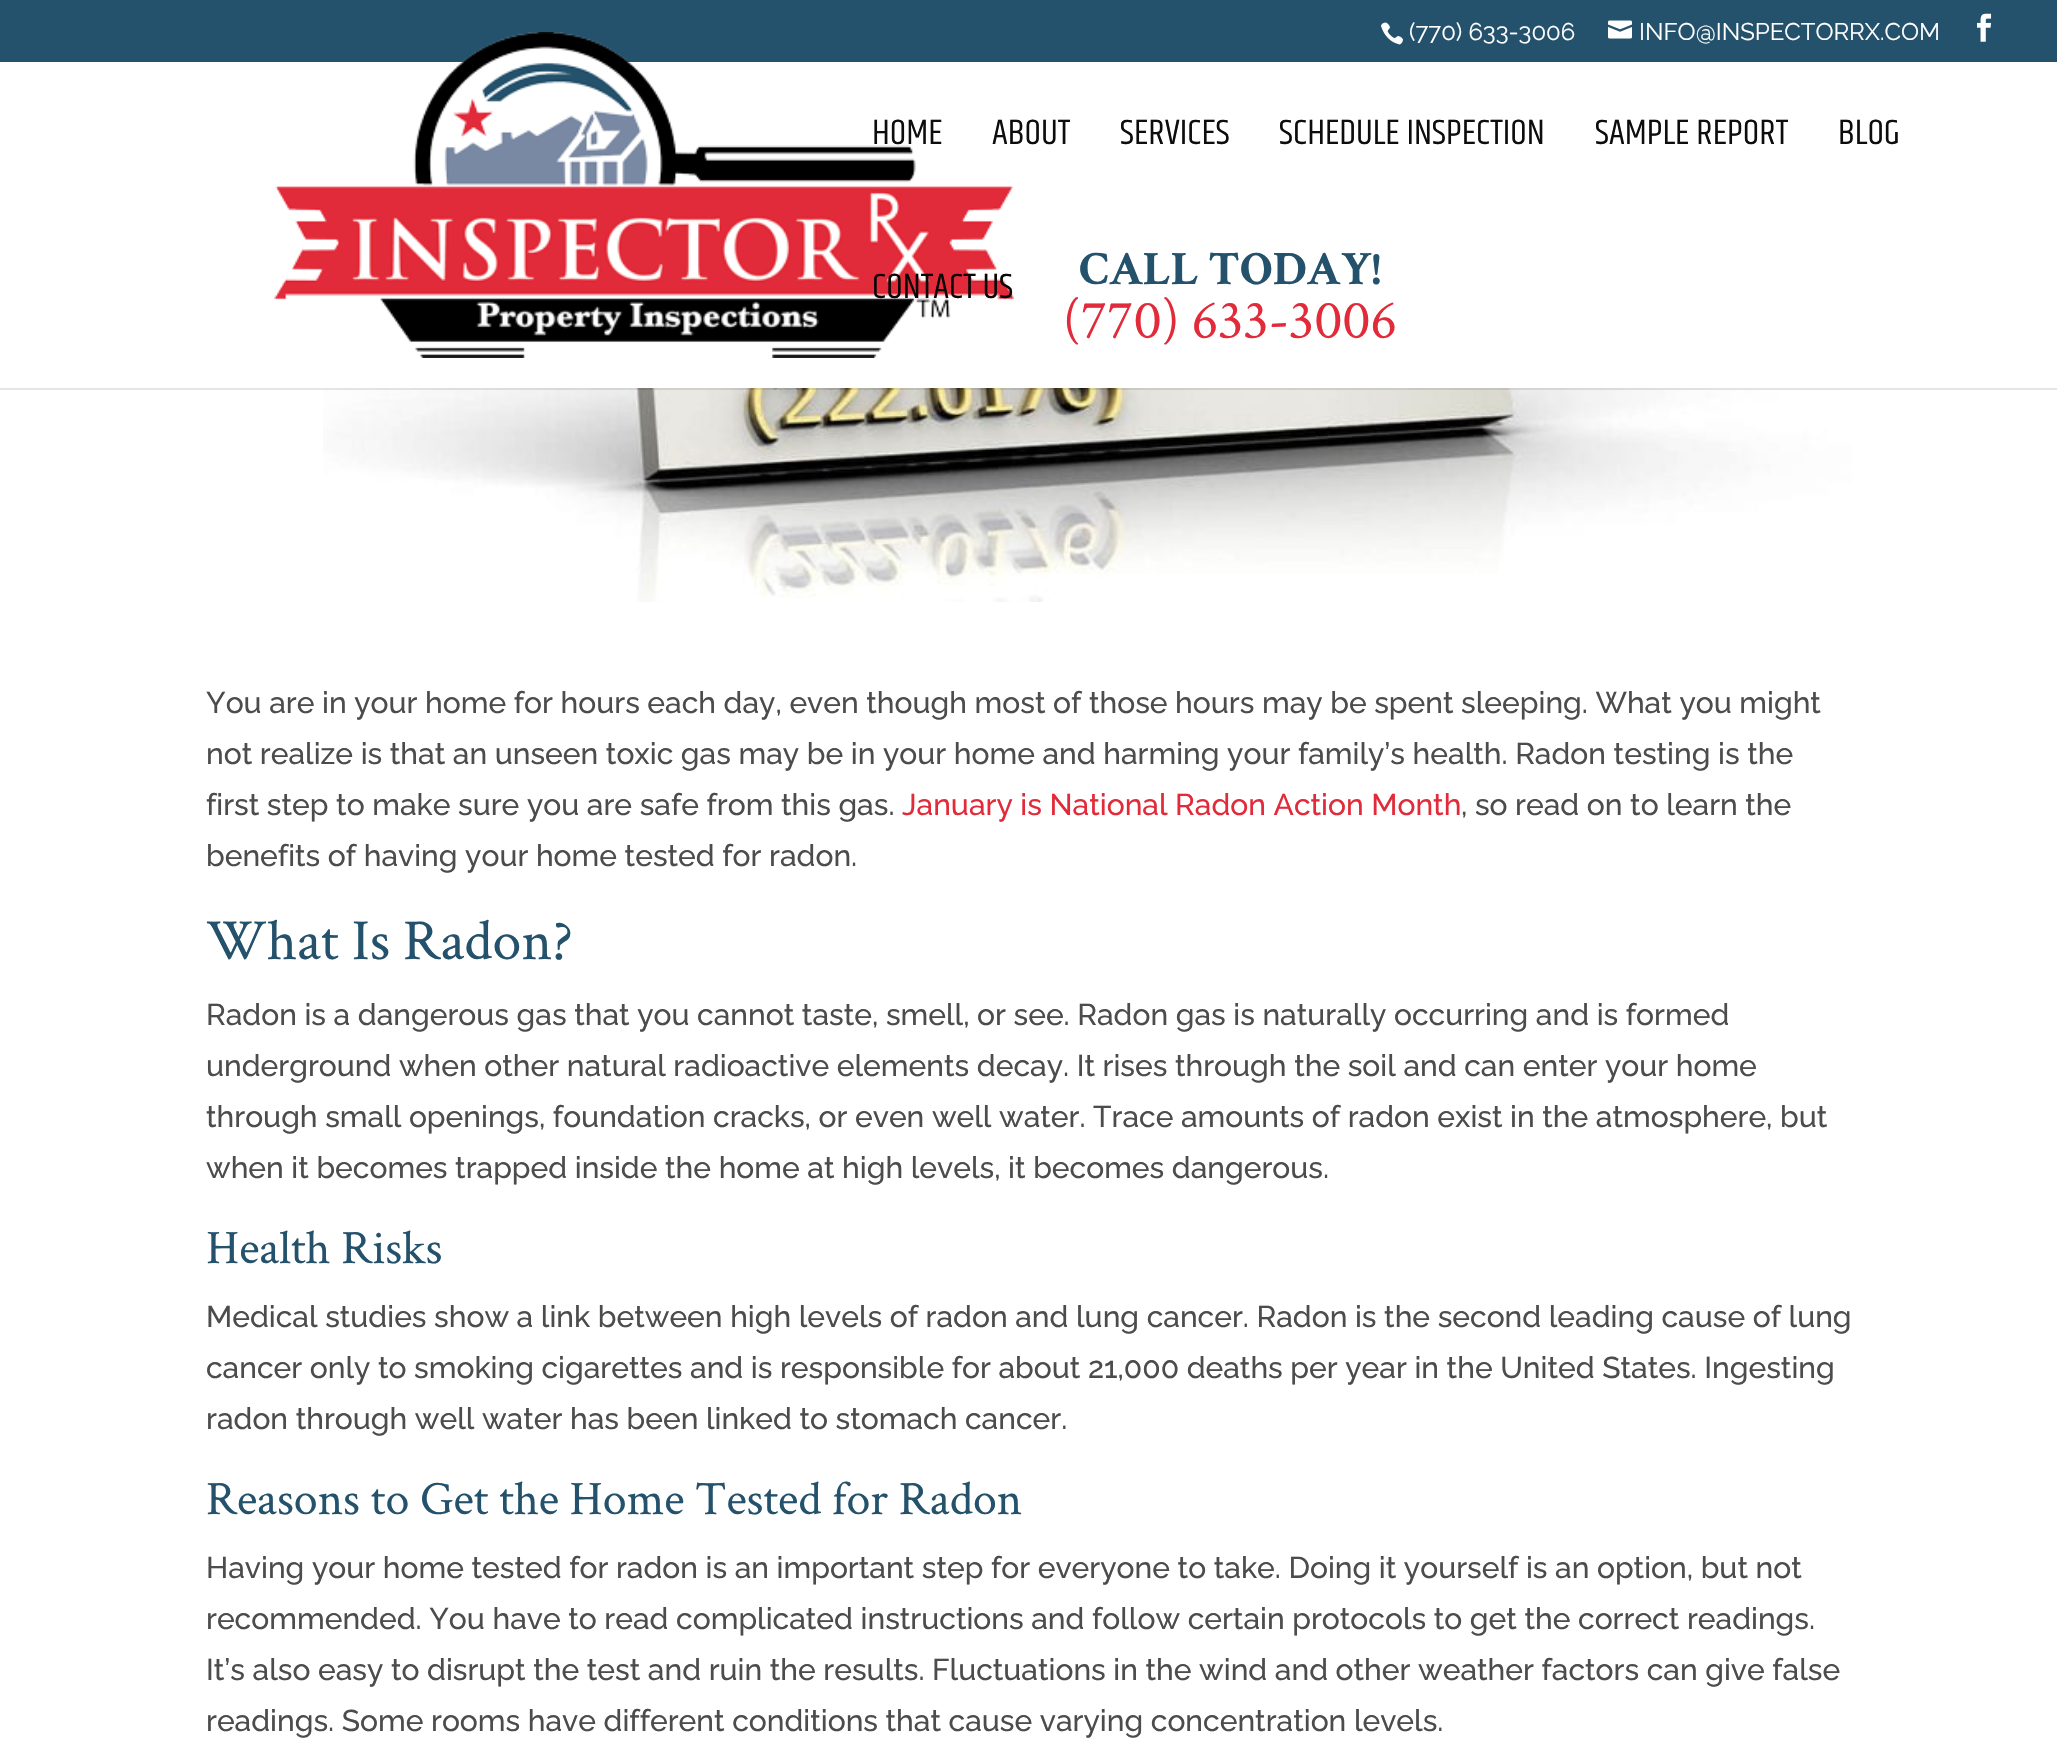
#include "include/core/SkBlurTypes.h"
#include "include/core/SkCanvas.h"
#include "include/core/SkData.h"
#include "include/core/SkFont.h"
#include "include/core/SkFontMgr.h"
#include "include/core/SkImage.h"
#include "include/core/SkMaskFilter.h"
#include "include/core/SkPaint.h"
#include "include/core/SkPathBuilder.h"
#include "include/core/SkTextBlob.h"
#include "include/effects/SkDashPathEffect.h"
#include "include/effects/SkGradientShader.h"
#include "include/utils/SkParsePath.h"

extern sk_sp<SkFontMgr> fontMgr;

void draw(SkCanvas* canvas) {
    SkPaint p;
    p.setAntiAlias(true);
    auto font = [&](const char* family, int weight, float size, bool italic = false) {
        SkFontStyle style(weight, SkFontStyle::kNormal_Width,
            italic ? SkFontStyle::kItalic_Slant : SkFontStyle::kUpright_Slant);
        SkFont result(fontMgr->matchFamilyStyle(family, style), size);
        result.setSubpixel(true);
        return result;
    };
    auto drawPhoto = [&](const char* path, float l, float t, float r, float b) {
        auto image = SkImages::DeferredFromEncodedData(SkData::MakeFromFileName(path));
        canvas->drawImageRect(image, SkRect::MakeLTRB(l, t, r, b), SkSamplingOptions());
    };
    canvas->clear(0xFFFFFFFF);
    p.setColor(0xFF24516B);
    canvas->drawRect(SkRect::MakeLTRB(0, 0, 2057, 62), p);
    drawPhoto("media/1.png", 1381, 22, 1403, 45);
    auto font1 = font("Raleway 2", 100, 24);
    p.setColor(0xFFFFFFFF);
    canvas->drawString("(770) 633-3006", 1409, 40, font1, p);
    drawPhoto("media/2.png", 1608, 20, 1632, 39);
    canvas->drawString("INFO@INSPECTORRX.COM", 1639, 40, font1, p);
    drawPhoto("media/3.png", 1977, 13, 1992, 42);
    drawPhoto("media/5.png", 323, 388, 1852, 602);
    p.setColor(0x1A000000);
    canvas->drawRect(SkRect::MakeLTRB(0, 388, 2057, 390), p);
    drawPhoto("media/4.png", 274, 32, 1014, 358);
    auto font2 = font("Khand", 400, 36);
    p.setColor(0xFF0D0D0D);
    {
        const struct { const char* s; float x, y; } items[] = {
            {"HOME", 872, 144},
            {"ABOUT", 992, 144},
            {"SERVICES", 1120, 144},
            {"SCHEDULE INSPECTION", 1279, 144},
            {"SAMPLE REPORT", 1595, 144},
            {"BLOG", 1838, 144},
        };
        for (auto [s, x, y] : items) {
            canvas->drawString(s, x, y, font2, p);
        }
    }
    p.setColor(0xFF0C0506);
    canvas->drawString("CONTACT US", 872, 298, font2, p);
    auto font3 = font("Crimson Text", 700, 48);
    p.setColor(0xFF24516B);
    canvas->drawString("CALL TODAY!", 1079, 284, font3, p);
    auto font4 = font("Crimson Text", 400, 56);
    p.setColor(0xFFE22B3A);
    canvas->drawString("(770) 633-3006", 1063, 338, font4, p);
    auto font5 = font("Raleway", 100, 30);
    p.setColor(0xFF4C4C4C);
    {
        const struct { const char* s; float x, y; } items[] = {
            {"You are in your home for hours each day, even though most of those hours may be spent sleeping. What you might", 206, 713},
            {"not realize is that an unseen toxic gas may be in your home and harming your family’s health. Radon testing is the", 206, 764},
            {"first step to make sure you are safe from this gas.", 206, 815},
        };
        for (auto [s, x, y] : items) {
            canvas->drawString(s, x, y, font5, p);
        }
    }
    p.setColor(0xFFE22B3A);
    canvas->drawString("January is National Radon Action Month", 902, 815, font5, p);
    p.setColor(0xFF4C4C4C);
    canvas->drawString(", so read on to learn the", 1461, 815, font5, p);
    canvas->drawString("benefits of having your home tested for radon.", 206, 866, font5, p);
    auto font6 = font("Crimson Text", 400, 58);
    p.setColor(0xFF24516B);
    canvas->drawString("What Is Radon?", 206, 959, font6, p);
    p.setColor(0xFF4C4C4C);
    {
        const struct { const char* s; float x, y; } items[] = {
            {"Radon is a dangerous gas that you cannot taste, smell, or see. Radon gas is naturally occurring and is formed", 206, 1025},
            {"underground when other natural radioactive elements decay. It rises through the soil and can enter your home", 206, 1076},
            {"through small openings, foundation cracks, or even well water. Trace amounts of radon exist in the atmosphere, but", 206, 1127},
            {"when it becomes trapped inside the home at high levels, it becomes dangerous.", 206, 1178},
        };
        for (auto [s, x, y] : items) {
            canvas->drawString(s, x, y, font5, p);
        }
    }
    auto font7 = font("Crimson Text", 400, 48);
    p.setColor(0xFF24516B);
    canvas->drawString("Health Risks", 206, 1263, font7, p);
    p.setColor(0xFF4C4C4C);
    {
        const struct { const char* s; float x, y; } items[] = {
            {"Medical studies show a link between high levels of radon and lung cancer. Radon is the second leading cause of lung", 206, 1327},
            {"cancer only to smoking cigarettes and is responsible for about 21,000 deaths per year in the United States. Ingesting", 206, 1378},
            {"radon through well water has been linked to stomach cancer.", 206, 1429},
        };
        for (auto [s, x, y] : items) {
            canvas->drawString(s, x, y, font5, p);
        }
    }
    p.setColor(0xFF24516B);
    canvas->drawString("Reasons to Get the Home Tested for Radon", 206, 1514, font7, p);
    p.setColor(0xFF4C4C4C);
    {
        const struct { const char* s; float x, y; } items[] = {
            {"Having your home tested for radon is an important step for everyone to take. Doing it yourself is an option, but not", 206, 1578},
            {"recommended. You have to read complicated instructions and follow certain protocols to get the correct readings.", 206, 1629},
            {"It’s also easy to disrupt the test and ruin the results. Fluctuations in the wind and other weather factors can give false", 206, 1680},
            {"readings. Some rooms have different conditions that cause varying concentration levels.", 206, 1731},
        };
        for (auto [s, x, y] : items) {
            canvas->drawString(s, x, y, font5, p);
        }
    }
}
